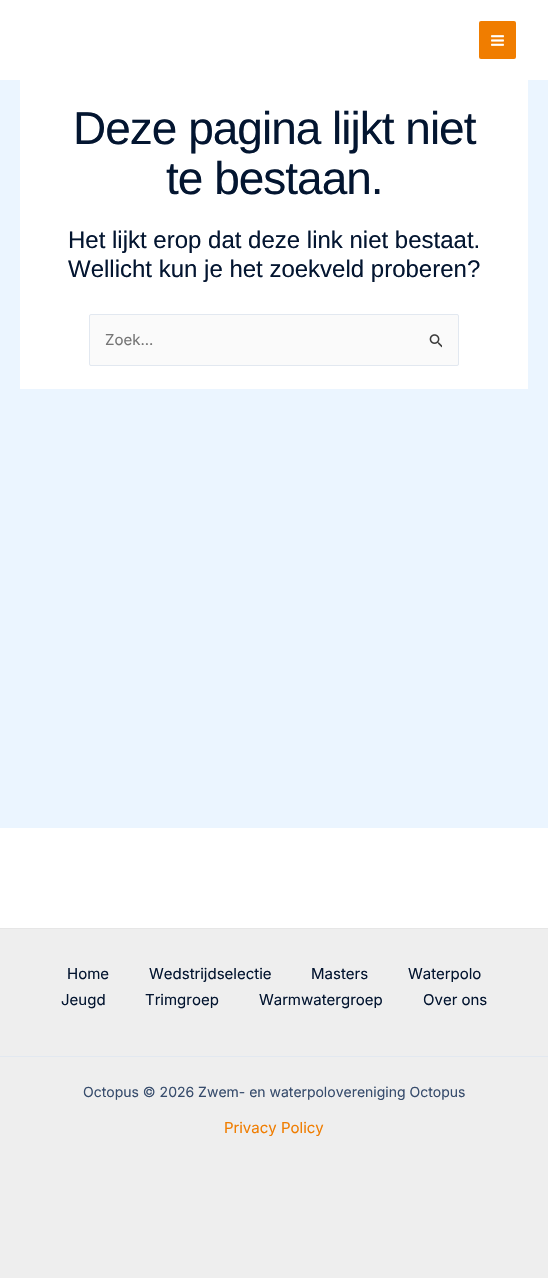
#include "include/core/SkBlurTypes.h"
#include "include/core/SkCanvas.h"
#include "include/core/SkData.h"
#include "include/core/SkFont.h"
#include "include/core/SkFontMgr.h"
#include "include/core/SkImage.h"
#include "include/core/SkMaskFilter.h"
#include "include/core/SkPaint.h"
#include "include/core/SkPathBuilder.h"
#include "include/core/SkTextBlob.h"
#include "include/effects/SkDashPathEffect.h"
#include "include/effects/SkGradientShader.h"
#include "include/utils/SkParsePath.h"

extern sk_sp<SkFontMgr> fontMgr;

void draw(SkCanvas* canvas) {
    SkPaint p;
    p.setAntiAlias(true);
    auto font = [&](const char* family, int weight, float size, bool italic = false) {
        SkFontStyle style(weight, SkFontStyle::kNormal_Width,
            italic ? SkFontStyle::kItalic_Slant : SkFontStyle::kUpright_Slant);
        SkFont result(fontMgr->matchFamilyStyle(family, style), size);
        result.setSubpixel(true);
        return result;
    };
    auto drawTracked = [&](const char* s, float x, float y, const SkFont& font, const SkPaint& ink, float letter, float word) {
        std::vector<SkGlyphID> glyphs(font.countText(s, strlen(s), SkTextEncoding::kUTF8));
        std::vector<float> xs(glyphs.size());
        font.textToGlyphs(s, strlen(s), SkTextEncoding::kUTF8, glyphs);
        font.getXPos(glyphs, xs, x);
        float extra = 0;
        for (size_t i = 0; i < glyphs.size(); i++) {
            xs[i] += extra;
            extra += letter + word * (glyphs[i] == font.unicharToGlyph(' '));
        }
        canvas->drawTextBlob(SkTextBlob::MakeFromPosHGlyphs(glyphs, xs, y, font), 0, 0, ink);
    };
    auto drawPhoto = [&](const char* path, float l, float t, float r, float b) {
        auto image = SkImages::DeferredFromEncodedData(SkData::MakeFromFileName(path));
        canvas->drawImageRect(image, SkRect::MakeLTRB(l, t, r, b), SkSamplingOptions());
    };
    canvas->clear(0xFFEBF5FF);
    p.setColor(0xFFFFFFFF);
    canvas->drawRect(SkRect::MakeLTRB(0, 0, 548, 80), p);
    p.setColor(0xFFF07D00);
    canvas->drawRoundRect(SkRect::MakeLTRB(479, 21, 516, 59), 2, 2, p);
    drawPhoto("media/1.png", 491, 35, 504, 46);
    p.setColor(0xFFFFFFFF);
    canvas->drawRect(SkRect::MakeLTRB(20, 80, 528, 389), p);
    auto font1 = font("Liberation Sans", 400, 46);
    p.setColor(0xFF031530);
    drawTracked("Deze pagina lijkt niet", 73, 144, font1, p, -1, 0);
    drawTracked("te bestaan.", 166, 194, font1, p, -1, 0);
    auto font2 = font("Liberation Sans", 400, 24);
    canvas->drawString("Het lijkt erop dat deze link niet bestaat.", 68, 248, font2, p);
    canvas->drawString("Wellicht kun je het zoekveld proberen?", 68, 277, font2, p);
    p.setColor(0xFFFAFAFA);
    canvas->drawRoundRect(SkRect::MakeLTRB(89.5f, 314.5f, 458.5f, 365.5f), 1.5f, 1.5f, p);
    p.setStyle(SkPaint::kStroke_Style);
    p.setStrokeWidth(1);
    p.setColor(0xFFE2E8F0);
    canvas->drawRoundRect(SkRect::MakeLTRB(89.5f, 314.5f, 458.5f, 365.5f), 1.5f, 1.5f, p);
    auto font3 = font("Inter", 400, 15);
    p.setStyle(SkPaint::kFill_Style);
    p.setColor(0xFF757575);
    canvas->drawString("Zoek...", 105, 345, font3, p);
    drawPhoto("media/2.png", 429, 334, 442, 348);
    {
        const struct { float l, t, r, b; SkColor color; } items[] = {
            {0, 828, 548, 928, 0xFFFFFFFF},
            {0, 929, 548, 1056, 0xFFEEEEEE},
            {0, 928, 548, 929, 0xFFE6E6E6},
        };
        for (auto [l, t, r, b, color] : items) {
            p.setColor(color);
            canvas->drawRect(SkRect::MakeLTRB(l, t, r, b), p);
        }
    }
    p.setColor(0xFF031530);
    {
        const struct { const char* s; float x, y; } items[] = {
            {"Home", 67, 979},
            {"Wedstrijdselectie", 149, 979},
            {"Masters", 311, 979},
            {"Waterpolo", 408, 979},
            {"Jeugd", 61, 1005},
            {"Trimgroep", 145, 1005},
            {"Warmwatergroep", 259, 1005},
            {"Over ons", 423, 1005},
        };
        for (auto [s, x, y] : items) {
            canvas->drawString(s, x, y, font3, p);
        }
    }
    p.setColor(0xFFEEEEEE);
    canvas->drawRect(SkRect::MakeLTRB(0, 1057, 548, 1278), p);
    p.setColor(0xFFE2E8F0);
    canvas->drawRect(SkRect::MakeLTRB(0, 1056, 548, 1057), p);
    auto font4 = font("Inter", 400, 14);
    p.setColor(0xFF374C6C);
    canvas->drawString("Octopus © 2026 Zwem- en waterpolovereniging Octopus", 83, 1097, font4, p);
    p.setColor(0xFFF07D00);
    canvas->drawString("Privacy Policy", 224, 1133, font3, p);
}
